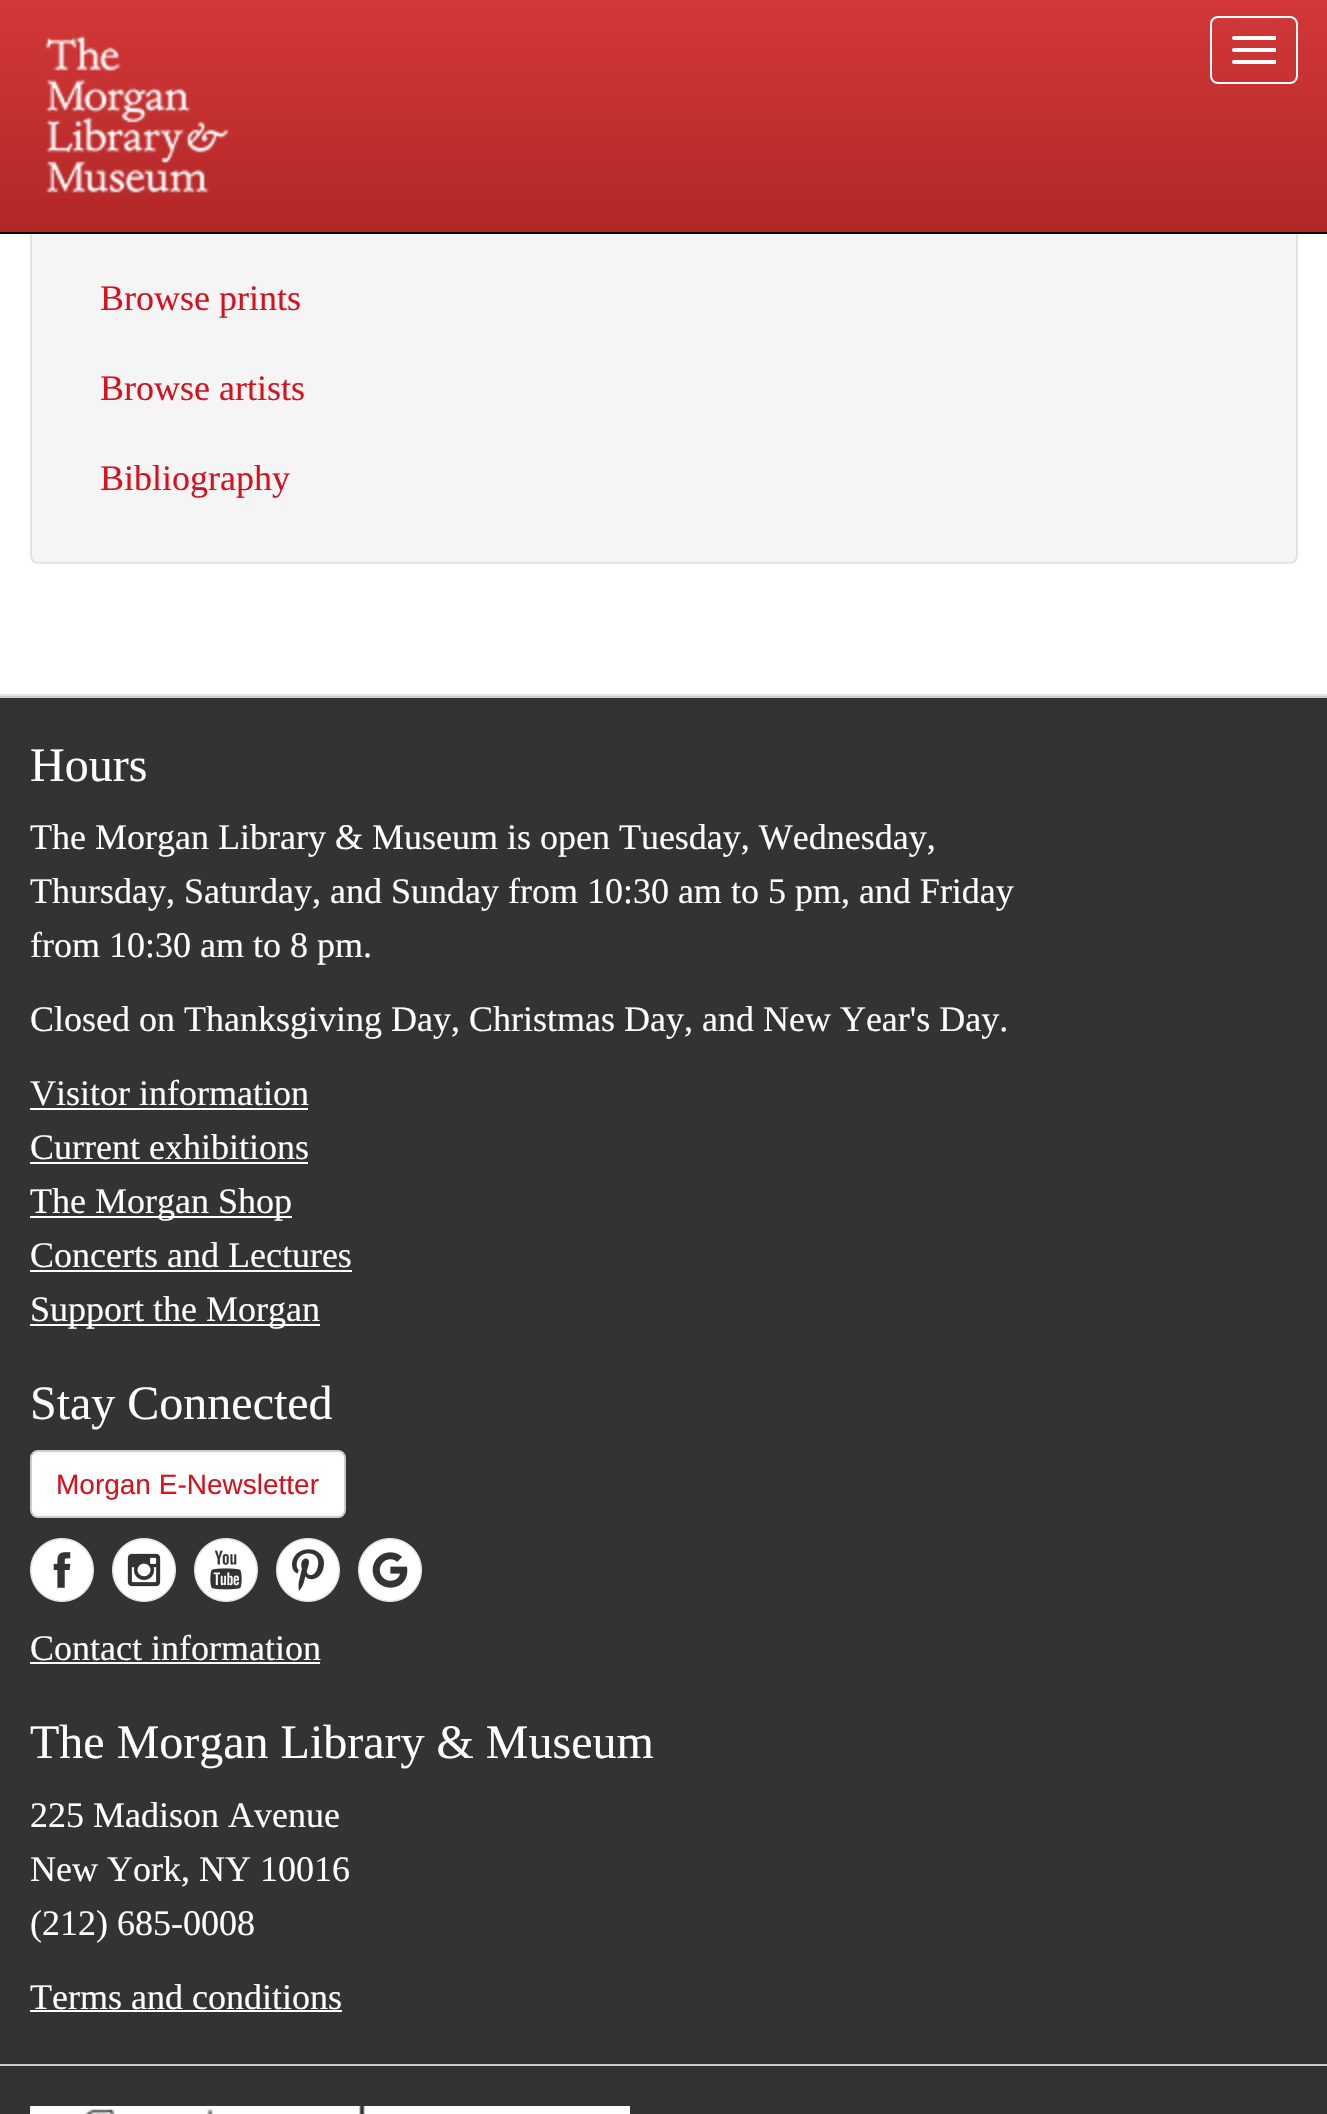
#include "include/core/SkBlurTypes.h"
#include "include/core/SkCanvas.h"
#include "include/core/SkData.h"
#include "include/core/SkFont.h"
#include "include/core/SkFontMgr.h"
#include "include/core/SkImage.h"
#include "include/core/SkMaskFilter.h"
#include "include/core/SkPaint.h"
#include "include/core/SkPathBuilder.h"
#include "include/core/SkTextBlob.h"
#include "include/effects/SkDashPathEffect.h"
#include "include/effects/SkGradientShader.h"
#include "include/utils/SkParsePath.h"

extern sk_sp<SkFontMgr> fontMgr;

void draw(SkCanvas* canvas) {
    SkPaint p;
    p.setAntiAlias(true);
    auto font = [&](const char* family, int weight, float size, bool italic = false) {
        SkFontStyle style(weight, SkFontStyle::kNormal_Width,
            italic ? SkFontStyle::kItalic_Slant : SkFontStyle::kUpright_Slant);
        SkFont result(fontMgr->matchFamilyStyle(family, style), size);
        result.setSubpixel(true);
        return result;
    };
    auto drawPhoto = [&](const char* path, float l, float t, float r, float b) {
        auto image = SkImages::DeferredFromEncodedData(SkData::MakeFromFileName(path));
        canvas->drawImageRect(image, SkRect::MakeLTRB(l, t, r, b), SkSamplingOptions());
    };
    canvas->clear(0xFFFFFFFF);
    p.setColor(0xFFF5F5F5);
    canvas->drawRoundRect(SkRect::MakeLTRB(31, -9, 1297, 563), 7, 7, p);
    p.setStyle(SkPaint::kStroke_Style);
    p.setStrokeWidth(2);
    p.setColor(0xFFE3E3E3);
    canvas->drawRoundRect(SkRect::MakeLTRB(31, -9, 1297, 563), 7, 7, p);
    p.setStyle(SkPaint::kFill_Style);
    {
        const SkColor colors[] = {0xFFD33838, 0xFFB22727};
        const float stops[] = {0, 1};
        const SkPoint ends[] = {{664, 0}, {664, 232}};
        p.setShader(SkGradientShader::MakeLinear(ends, colors, stops, 2, SkTileMode::kClamp));
        p.setAlpha(255);
    }
    canvas->drawRect(SkRect::MakeLTRB(0, 0, 1327, 232), p);
    p.setShader(nullptr);
    p.setColor(0xFF090909);
    canvas->drawRect(SkRect::MakeLTRB(0, 232, 1327, 234), p);
    drawPhoto("media/1.png", 45, 35, 229, 193);
    p.setStyle(SkPaint::kStroke_Style);
    p.setColor(0xFFFFFFFF);
    canvas->drawRoundRect(SkRect::MakeLTRB(1211, 17, 1297, 83), 7, 7, p);
    p.setStyle(SkPaint::kFill_Style);
    canvas->drawRoundRect(SkRect::MakeLTRB(1232, 36, 1276, 40), 2, 2, p);
    canvas->drawRect(SkRect::MakeLTRB(1274, 36, 1276, 40), p);
    canvas->drawRoundRect(SkRect::MakeLTRB(1232, 48, 1276, 52), 2, 2, p);
    canvas->drawRect(SkRect::MakeLTRB(1274, 48, 1276, 52), p);
    canvas->drawRoundRect(SkRect::MakeLTRB(1232, 60, 1276, 64), 2, 2, p);
    canvas->drawRect(SkRect::MakeLTRB(1274, 60, 1276, 64), p);
    auto font1 = font("Liberation Serif", 400, 36);
    p.setColor(0xFFD6121F);
    {
        const struct { const char* s; float x, y; } items[] = {
            {"Browse prints", 100, 310},
            {"Browse artists", 100, 400},
            {"Bibliography", 100, 490},
        };
        for (auto [s, x, y] : items) {
            canvas->drawString(s, x, y, font1, p);
        }
    }
    {
        const struct { float l, t, r, b; SkColor color; } items[] = {
            {0, 698, 1327, 2114, 0xFF333333},
            {0, 694, 1327, 696, 0xFFE5E5E5},
            {0, 696, 1327, 698, 0xFFCCCCCC},
        };
        for (auto [l, t, r, b, color] : items) {
            p.setColor(color);
            canvas->drawRect(SkRect::MakeLTRB(l, t, r, b), p);
        }
    }
    auto font2 = font("Liberation Serif", 400, 48);
    p.setColor(0xFFFFFFFF);
    canvas->drawString("Hours", 30, 781, font2, p);
    {
        const struct { const char* s; float x, y; } items[] = {
            {"The Morgan Library & Museum is open Tuesday, Wednesday,", 30, 849},
            {"Thursday, Saturday, and Sunday from 10:30 am to 5 pm, and Friday", 30, 903},
            {"from 10:30 am to 8 pm.", 30, 957},
            {"Closed on Thanksgiving Day, Christmas Day, and New Year's Day.", 30, 1031},
            {"Visitor information", 30, 1105},
        };
        for (auto [s, x, y] : items) {
            canvas->drawString(s, x, y, font1, p);
        }
    }
    canvas->drawRect(SkRect::MakeLTRB(30, 1108, 308, 1110), p);
    canvas->drawString("Current exhibitions", 30, 1159, font1, p);
    canvas->drawRect(SkRect::MakeLTRB(30, 1162, 308, 1164), p);
    canvas->drawRect(SkRect::MakeLTRB(30, 1216, 292, 1218), p);
    canvas->drawString("The Morgan Shop", 30, 1213, font1, p);
    canvas->drawString("Concerts and Lectures", 30, 1267, font1, p);
    canvas->drawRect(SkRect::MakeLTRB(30, 1270, 352, 1272), p);
    canvas->drawRect(SkRect::MakeLTRB(30, 1324, 320, 1326), p);
    canvas->drawString("Support the Morgan", 30, 1321, font1, p);
    canvas->drawString("Stay Connected", 30, 1419, font2, p);
    canvas->drawRoundRect(SkRect::MakeLTRB(31, 1451, 345, 1517), 7, 7, p);
    p.setStyle(SkPaint::kStroke_Style);
    p.setColor(0xFFCCCCCC);
    canvas->drawRoundRect(SkRect::MakeLTRB(31, 1451, 345, 1517), 7, 7, p);
    auto font3 = font("Liberation Sans", 400, 28);
    p.setStyle(SkPaint::kFill_Style);
    p.setColor(0xFFD6121F);
    canvas->drawString("Morgan E-Newsletter", 56, 1494, font3, p);
    drawPhoto("media/2.png", 30, 1538, 94, 1602);
    drawPhoto("media/3.png", 112, 1538, 176, 1602);
    drawPhoto("media/4.png", 194, 1538, 258, 1602);
    drawPhoto("media/5.png", 276, 1538, 340, 1602);
    drawPhoto("media/6.png", 358, 1538, 422, 1602);
    p.setColor(0xFFFFFFFF);
    canvas->drawString("Contact information", 30, 1660, font1, p);
    canvas->drawRect(SkRect::MakeLTRB(30, 1662, 320, 1664), p);
    canvas->drawString("The Morgan Library & Museum", 30, 1758, font2, p);
    {
        const struct { const char* s; float x, y; } items[] = {
            {"225 Madison Avenue", 30, 1827},
            {"New York, NY 10016", 30, 1881},
            {"(212) 685-0008", 30, 1935},
            {"Terms and conditions", 30, 2009},
        };
        for (auto [s, x, y] : items) {
            canvas->drawString(s, x, y, font1, p);
        }
    }
    canvas->drawRect(SkRect::MakeLTRB(30, 2010, 342, 2012), p);
    p.setColor(0xFFCCCCCC);
    canvas->drawRect(SkRect::MakeLTRB(0, 2064, 1327, 2066), p);
    drawPhoto("media/7.png", 30, 2106, 630, 2114);
}
